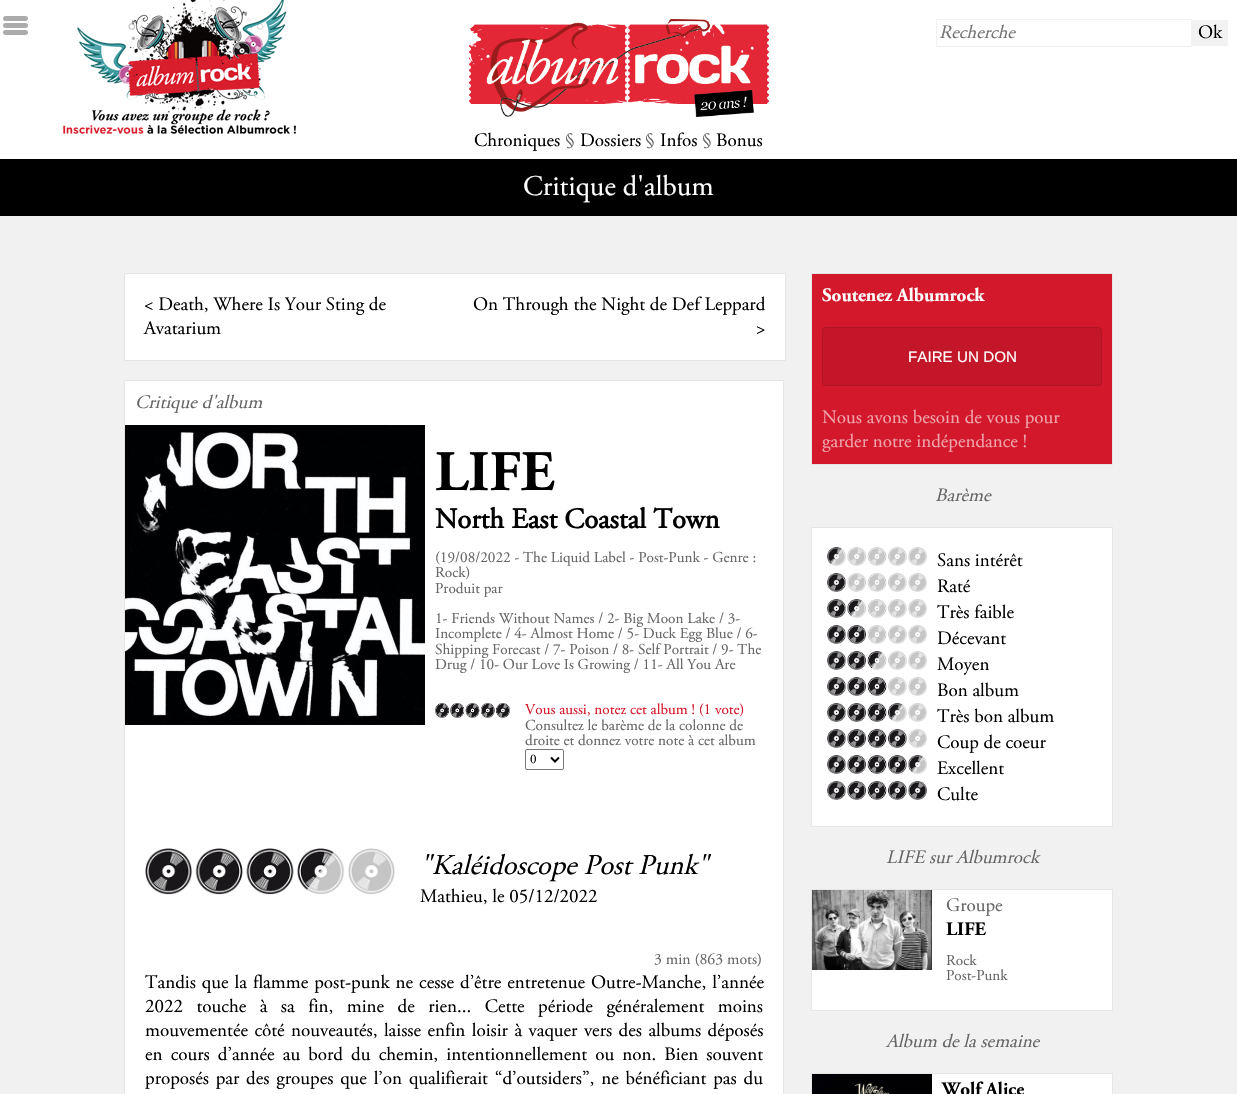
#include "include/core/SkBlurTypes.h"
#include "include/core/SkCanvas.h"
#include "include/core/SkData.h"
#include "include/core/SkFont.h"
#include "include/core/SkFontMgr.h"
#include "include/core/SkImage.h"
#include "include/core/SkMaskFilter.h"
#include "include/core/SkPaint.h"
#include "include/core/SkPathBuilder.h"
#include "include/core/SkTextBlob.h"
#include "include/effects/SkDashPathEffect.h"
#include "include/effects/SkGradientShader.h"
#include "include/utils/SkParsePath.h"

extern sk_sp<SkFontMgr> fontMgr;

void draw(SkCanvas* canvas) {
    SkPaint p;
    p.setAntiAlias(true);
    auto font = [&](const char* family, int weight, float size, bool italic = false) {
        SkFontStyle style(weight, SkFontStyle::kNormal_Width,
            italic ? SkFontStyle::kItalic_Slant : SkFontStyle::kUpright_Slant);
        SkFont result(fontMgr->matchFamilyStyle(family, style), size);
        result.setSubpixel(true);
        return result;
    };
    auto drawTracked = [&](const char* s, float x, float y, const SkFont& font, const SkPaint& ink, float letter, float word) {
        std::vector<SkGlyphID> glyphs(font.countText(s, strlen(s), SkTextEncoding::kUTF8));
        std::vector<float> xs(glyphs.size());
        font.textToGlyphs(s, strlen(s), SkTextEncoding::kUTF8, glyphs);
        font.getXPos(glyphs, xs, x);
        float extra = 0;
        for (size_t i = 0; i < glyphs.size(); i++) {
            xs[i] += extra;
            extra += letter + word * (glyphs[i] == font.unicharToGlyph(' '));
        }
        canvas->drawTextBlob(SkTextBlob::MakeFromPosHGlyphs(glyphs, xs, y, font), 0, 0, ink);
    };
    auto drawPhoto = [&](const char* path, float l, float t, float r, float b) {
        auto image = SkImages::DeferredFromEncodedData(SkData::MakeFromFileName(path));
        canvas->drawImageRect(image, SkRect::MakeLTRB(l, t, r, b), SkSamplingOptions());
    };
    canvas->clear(0xFFF1F1F1);
    p.setColor(0xFFFFFFFF);
    canvas->drawRect(SkRect::MakeLTRB(0, 0, 1237, 159), p);
    drawPhoto("media/1.png", 3, 16, 28, 35);
    drawPhoto("media/2.png", 63, 0, 296, 134);
    drawPhoto("media/3.png", 469, 19, 769, 117);
    p.setStyle(SkPaint::kStroke_Style);
    p.setStrokeWidth(1);
    p.setColor(0xFFF2F2F2);
    canvas->drawRect(SkRect::MakeLTRB(936.5f, 19.5f, 1191.5f, 46.5f), p);
    auto font1 = font("Adobe Garamond", 400, 19, true);
    p.setStyle(SkPaint::kFill_Style);
    p.setColor(0xFF757575);
    canvas->drawString("Recherche", 939, 38, font1, p);
    p.setColor(0xFFF2F2F2);
    canvas->drawRect(SkRect::MakeLTRB(1192, 20, 1228, 46), p);
    auto font2 = font("Adobe Garamond", 400, 19);
    p.setColor(0xFF000000);
    canvas->drawString("Ok", 1198, 38, font2, p);
    canvas->drawString("Chroniques", 474, 146, font2, p);
    p.setColor(0xFF666666);
    canvas->drawString("§", 565, 146, font2, p);
    p.setColor(0xFF000000);
    canvas->drawString("Dossiers", 580, 146, font2, p);
    p.setColor(0xFF666666);
    canvas->drawString("§", 645, 146, font2, p);
    p.setColor(0xFF000000);
    canvas->drawString("Infos", 660, 146, font2, p);
    p.setColor(0xFF666666);
    canvas->drawString("§", 702, 146, font2, p);
    p.setColor(0xFF000000);
    canvas->drawString("Bonus", 716, 146, font2, p);
    canvas->drawRect(SkRect::MakeLTRB(0, 159, 1237, 216), p);
    auto font3 = font("Adobe Garamond", 400, 28.5f);
    p.setColor(0xFFFFFFFF);
    canvas->drawString("Critique d'album", 523, 195, font3, p);
    canvas->drawRect(SkRect::MakeLTRB(124.5f, 273.5f, 785.5f, 360.5f), p);
    p.setStyle(SkPaint::kStroke_Style);
    p.setColor(0xFFE5E5E5);
    canvas->drawRect(SkRect::MakeLTRB(124.5f, 273.5f, 785.5f, 360.5f), p);
    p.setStyle(SkPaint::kFill_Style);
    p.setColor(0xFF000000);
    {
        const struct { const char* s; float x, y; } items[] = {
            {"< Death, Where Is Your Sting de", 144, 310},
            {"Avatarium", 144, 334},
            {"On Through the Night de Def Leppard", 473, 310},
            {">", 756, 334},
        };
        for (auto [s, x, y] : items) {
            canvas->drawString(s, x, y, font2, p);
        }
    }
    p.setColor(0xFFFFFFFF);
    canvas->drawRect(SkRect::MakeLTRB(124.5f, 380.5f, 783.5f, 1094.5f), p);
    p.setStyle(SkPaint::kStroke_Style);
    p.setColor(0xFFE5E5E5);
    canvas->drawRect(SkRect::MakeLTRB(124.5f, 380.5f, 783.5f, 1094.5f), p);
    p.setStyle(SkPaint::kFill_Style);
    p.setColor(0xFF666666);
    canvas->drawString("Critique d'album", 135, 408, font1, p);
    drawPhoto("media/4.png", 125, 425, 425, 725);
    auto font4 = font("Adobe Garamond", 700, 57);
    p.setColor(0xFF000000);
    canvas->drawString("LIFE", 435, 490, font4, p);
    auto font5 = font("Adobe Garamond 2", 700, 28.5f);
    canvas->drawString("North East Coastal Town", 435, 528, font5, p);
    auto font6 = font("Adobe Garamond", 400, 15.2f);
    p.setColor(0xFF666666);
    {
        const struct { const char* s; float x, y; } items[] = {
            {"(19/08/2022 - The Liquid Label - Post-Punk - Genre :", 435, 562},
            {"Rock)", 435, 577},
            {"Produit par", 435, 593},
            {"1- Friends Without Names / 2- Big Moon Lake / 3-", 435, 623},
            {"Incomplete / 4- Almost Home / 5- Duck Egg Blue / 6-", 435, 638},
            {"Shipping Forecast / 7- Poison / 8- Self Portrait / 9- The", 435, 654},
            {"Drug / 10- Our Love Is Growing / 11- All You Are", 435, 669},
        };
        for (auto [s, x, y] : items) {
            canvas->drawString(s, x, y, font6, p);
        }
    }
    drawPhoto("media/5.png", 435, 703, 510, 718);
    p.setColor(0xFFD4182C);
    canvas->drawString("Vous aussi, notez cet album ! (1 vote)", 525, 714, font6, p);
    p.setColor(0xFF666666);
    canvas->drawString("Consultez le barème de la colonne de", 525, 730, font6, p);
    canvas->drawString("droite et donnez votre note à cet album", 525, 745, font6, p);
    p.setStyle(SkPaint::kStroke_Style);
    p.setColor(0xFF767676);
    canvas->drawRoundRect(SkRect::MakeLTRB(525.5f, 749.5f, 563.5f, 769.5f), 1.5f, 1.5f, p);
    p.setStrokeWidth(2);
    p.setColor(0xFF000000);
    canvas->drawPath(SkPathBuilder().moveTo(551, 757.5f).lineTo(555, 761.5f).lineTo(559, 757.5f).detach(), p);
    auto font7 = font("Adobe Garamond", 400, 13);
    p.setStyle(SkPaint::kFill_Style);
    canvas->drawString("0", 530, 763, font7, p);
    drawPhoto("media/6.png", 145, 848, 395, 895);
    auto font8 = font("Adobe Garamond", 400, 28.5f, true);
    canvas->drawString("\"Kaléidoscope Post Punk\"", 420, 874, font8, p);
    canvas->drawString("Mathieu, le 05/12/2022", 420, 902, font2, p);
    auto font9 = font("Adobe Garamond", 400, 15.75f);
    p.setColor(0xFF666666);
    canvas->drawString("3 min (863 mots)", 654, 964, font9, p);
    p.setColor(0xFF000000);
    drawTracked("Tandis que la flamme post-punk ne cesse d’être entretenue Outre-Manche, l’année", 145, 988, font2, p, 0, 1.25f);
    drawTracked("2022 touche à sa fin, mine de rien... Cette période généralement moins", 145, 1012, font2, p, 0, 8.75f);
    drawTracked("mouvementée côté nouveautés, laisse enfin loisir à vaquer vers des albums déposés", 145, 1036, font2, p, 0, 1.75f);
    drawTracked("en cours d’année au bord du chemin, intentionnellement ou non. Bien souvent", 145, 1060, font2, p, 0, 3.4f);
    drawTracked("proposés par des groupes que l’on qualifierait “d’outsiders”, ne bénéficiant pas du", 145, 1084, font2, p, 0, 2.1f);
    p.setColor(0xFFD4182C);
    canvas->drawRect(SkRect::MakeLTRB(811.5f, 273.5f, 1112.5f, 464.5f), p);
    p.setStyle(SkPaint::kStroke_Style);
    p.setStrokeWidth(1);
    p.setColor(0xFFE5E5E5);
    canvas->drawRect(SkRect::MakeLTRB(811.5f, 273.5f, 1112.5f, 464.5f), p);
    auto font10 = font("Adobe Garamond", 700, 19);
    p.setStyle(SkPaint::kFill_Style);
    p.setColor(0xFFFFFFFF);
    canvas->drawString("Soutenez Albumrock", 822, 301, font10, p);
    p.setColor(0xFFC31628);
    canvas->drawRoundRect(SkRect::MakeLTRB(822, 327, 1102, 386), 4, 4, p);
    p.setStyle(SkPaint::kStroke_Style);
    p.setColor(0x1A000000);
    canvas->drawRoundRect(SkRect::MakeLTRB(822.5f, 327.5f, 1101.5f, 385.5f), 3.5f, 3.5f, p);
    auto font11 = font("Liberation Sans", 400, 15.2f);
    p.setStyle(SkPaint::kFill_Style);
    p.setColor(0xFFFFFFFF);
    canvas->drawString("FAIRE UN DON", 908, 362, font11, p);
    p.setColor(0xFFEEA3AB);
    canvas->drawString("Nous avons besoin de vous pour", 822, 423, font2, p);
    canvas->drawString("garder notre indépendance !", 822, 447, font2, p);
    p.setColor(0xFF666666);
    canvas->drawString("Barème", 935, 501, font1, p);
    p.setColor(0xFFFFFFFF);
    canvas->drawRect(SkRect::MakeLTRB(811.5f, 527.5f, 1112.5f, 826.5f), p);
    p.setStyle(SkPaint::kStroke_Style);
    p.setColor(0xFFE5E5E5);
    canvas->drawRect(SkRect::MakeLTRB(811.5f, 527.5f, 1112.5f, 826.5f), p);
    drawPhoto("media/7.png", 827, 547, 927, 566);
    p.setStyle(SkPaint::kFill_Style);
    p.setColor(0xFF000000);
    canvas->drawString("Sans intérêt", 937, 566, font2, p);
    drawPhoto("media/8.png", 827, 573, 927, 592);
    canvas->drawString("Raté", 937, 592, font2, p);
    drawPhoto("media/9.png", 827, 599, 927, 618);
    canvas->drawString("Très faible", 937, 618, font2, p);
    drawPhoto("media/10.png", 827, 625, 927, 644);
    canvas->drawString("Décevant", 937, 644, font2, p);
    drawPhoto("media/11.png", 827, 651, 927, 670);
    canvas->drawString("Moyen", 937, 670, font2, p);
    drawPhoto("media/12.png", 827, 677, 927, 696);
    canvas->drawString("Bon album", 937, 696, font2, p);
    drawPhoto("media/13.png", 827, 703, 927, 722);
    canvas->drawString("Très bon album", 937, 722, font2, p);
    drawPhoto("media/14.png", 827, 729, 927, 748);
    canvas->drawString("Coup de coeur", 937, 748, font2, p);
    drawPhoto("media/15.png", 827, 755, 927, 774);
    canvas->drawString("Excellent", 937, 774, font2, p);
    drawPhoto("media/16.png", 827, 781, 927, 800);
    canvas->drawString("Culte", 937, 800, font2, p);
    p.setColor(0xFF666666);
    canvas->drawString("LIFE sur Albumrock", 886, 863, font1, p);
    p.setColor(0xFFFFFFFF);
    canvas->drawRect(SkRect::MakeLTRB(811.5f, 889.5f, 1112.5f, 1010.5f), p);
    p.setStyle(SkPaint::kStroke_Style);
    p.setColor(0xFFE5E5E5);
    canvas->drawRect(SkRect::MakeLTRB(811.5f, 889.5f, 1112.5f, 1010.5f), p);
    drawPhoto("media/17.png", 812, 890, 932, 970);
    p.setStyle(SkPaint::kFill_Style);
    p.setColor(0xFF666666);
    canvas->drawString("Groupe", 946, 911, font2, p);
    p.setColor(0xFF000000);
    canvas->drawString("LIFE", 946, 935, font10, p);
    p.setColor(0xFF666666);
    canvas->drawString("Rock", 946, 965, font6, p);
    canvas->drawString("Post-Punk", 946, 980, font6, p);
    canvas->drawString("Album de la semaine", 886, 1047, font1, p);
    p.setColor(0xFFFFFFFF);
    canvas->drawRect(SkRect::MakeLTRB(932, 1074, 1112, 1094), p);
    p.setStyle(SkPaint::kStroke_Style);
    p.setColor(0xFFE5E5E5);
    canvas->drawRect(SkRect::MakeLTRB(811.5f, 1073.5f, 1112.5f, 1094.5f), p);
    drawPhoto("media/18.png", 812, 1074, 932, 1094);
    p.setStyle(SkPaint::kFill_Style);
    p.setColor(0xFF000000);
    canvas->drawString("Wolf Alice", 942, 1095, font10, p);
}
